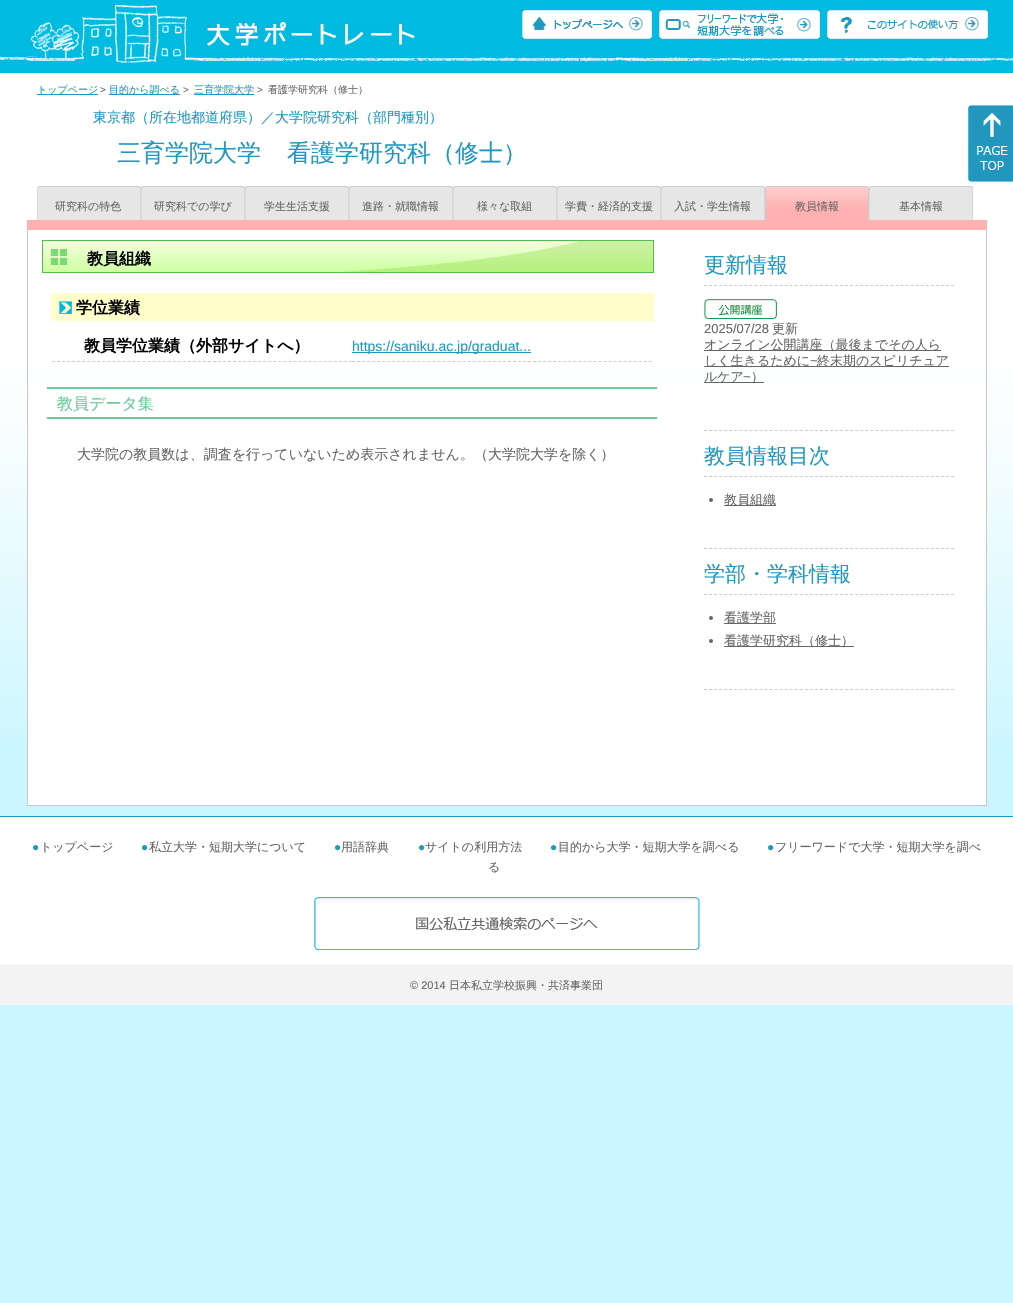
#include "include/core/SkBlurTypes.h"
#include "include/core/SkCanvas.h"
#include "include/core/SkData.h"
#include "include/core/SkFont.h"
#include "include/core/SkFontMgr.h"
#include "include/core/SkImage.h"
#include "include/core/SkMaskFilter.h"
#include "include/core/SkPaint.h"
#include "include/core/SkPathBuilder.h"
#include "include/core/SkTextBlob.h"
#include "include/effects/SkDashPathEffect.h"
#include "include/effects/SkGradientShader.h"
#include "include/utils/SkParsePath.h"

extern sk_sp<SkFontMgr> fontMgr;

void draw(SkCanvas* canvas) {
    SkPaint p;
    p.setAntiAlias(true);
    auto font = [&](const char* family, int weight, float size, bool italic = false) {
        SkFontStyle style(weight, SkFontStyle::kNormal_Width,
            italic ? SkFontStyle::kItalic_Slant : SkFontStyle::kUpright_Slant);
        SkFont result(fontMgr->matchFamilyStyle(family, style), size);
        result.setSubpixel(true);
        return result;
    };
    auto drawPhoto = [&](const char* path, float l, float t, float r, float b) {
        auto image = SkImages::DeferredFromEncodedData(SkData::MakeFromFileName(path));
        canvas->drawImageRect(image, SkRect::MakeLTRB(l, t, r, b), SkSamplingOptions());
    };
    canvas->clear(0xFFCBF6FF);
    drawPhoto("media/1.png", 0, 73, 1013, 737);
    drawPhoto("media/2.png", 0, 0, 1013, 73);
    drawPhoto("media/3.png", 27, 5, 987, 63);
    drawPhoto("media/4.png", 207, 20, 415, 46);
    drawPhoto("media/5.png", 522, 10, 652, 39);
    drawPhoto("media/6.png", 659, 10, 820, 39);
    drawPhoto("media/7.png", 827, 10, 988, 39);
    p.setColor(0xFFFFFFFF);
    canvas->drawRect(SkRect::MakeLTRB(27, 384, 987, 805), p);
    p.setColor(0xFF2198BF);
    canvas->drawRect(SkRect::MakeLTRB(37, 94, 98, 95), p);
    auto font1 = font("WenQuanYi Zen Hei", 500, 10);
    canvas->drawString("トップページ", 37, 93, font1, p);
    auto font2 = font("Liberation Sans", 400, 10);
    p.setColor(0xFF666666);
    canvas->drawString(">", 100, 93, font2, p);
    p.setColor(0xFF2198BF);
    canvas->drawRect(SkRect::MakeLTRB(109, 94, 180, 95), p);
    canvas->drawString("目的から調べる", 109, 93, font1, p);
    p.setColor(0xFF666666);
    canvas->drawString(">", 183, 93, font2, p);
    p.setColor(0xFF2198BF);
    canvas->drawRect(SkRect::MakeLTRB(194, 94, 254, 95), p);
    canvas->drawString("三育学院大学", 194, 93, font1, p);
    p.setColor(0xFF666666);
    canvas->drawString(">", 257, 93, font2, p);
    canvas->drawString("看護学研究科（修士）", 268, 93, font1, p);
    auto font3 = font("WenQuanYi Zen Hei", 500, 14);
    p.setColor(0xFF2198BF);
    canvas->drawString("東京都（所在地都道府県）／大学院研究科（部門種別）", 93, 122, font3, p);
    auto font4 = font("WenQuanYi Zen Hei", 500, 24);
    canvas->drawString("三育学院大学", 117, 161, font4, p);
    canvas->drawString("看護学研究科（修士）", 287, 161, font4, p);
    p.setColor(0xFFFFB0B0);
    canvas->drawRect(SkRect::MakeLTRB(27, 220, 987, 230), p);
    drawPhoto("media/8.png", 37, 186, 141, 220);
    auto font5 = font("WenQuanYi Zen Hei", 500, 11);
    p.setColor(0xFF666666);
    canvas->drawString("研究科の特色", 55, 210, font5, p);
    drawPhoto("media/8.png", 141, 186, 245, 220);
    canvas->drawString("研究科での学び", 154, 210, font5, p);
    drawPhoto("media/8.png", 245, 186, 349, 220);
    canvas->drawString("学生生活支援", 264, 210, font5, p);
    drawPhoto("media/8.png", 349, 186, 453, 220);
    canvas->drawString("進路・就職情報", 362, 210, font5, p);
    drawPhoto("media/8.png", 453, 186, 557, 220);
    canvas->drawString("様々な取組", 477, 210, font5, p);
    drawPhoto("media/8.png", 557, 186, 661, 220);
    canvas->drawString("学費・経済的支援", 565, 210, font5, p);
    drawPhoto("media/8.png", 661, 186, 765, 220);
    canvas->drawString("入試・学生情報", 674, 210, font5, p);
    drawPhoto("media/9.png", 765, 186, 869, 220);
    canvas->drawString("教員情報", 795, 210, font5, p);
    drawPhoto("media/8.png", 869, 186, 973, 220);
    canvas->drawString("基本情報", 899, 210, font5, p);
    {
        const struct { float l, t, r, b; SkColor color; } items[] = {
            {986, 230, 987, 806, 0xFFC8C8C8},
            {27, 805, 987, 806, 0xFFC8C8C8},
            {27, 230, 28, 806, 0xFFC8C8C8},
        };
        for (auto [l, t, r, b, color] : items) {
            p.setColor(color);
            canvas->drawRect(SkRect::MakeLTRB(l, t, r, b), p);
        }
    }
    drawPhoto("media/10.png", 42, 240, 654, 273);
    auto font6 = font("WenQuanYi Zen Hei", 700, 16);
    p.setColor(0xFF000000);
    canvas->drawString("教員組織", 87, 264, font6, p);
    p.setColor(0xFFFFFDCA);
    canvas->drawRect(SkRect::MakeLTRB(51, 293, 654, 321), p);
    drawPhoto("media/11.png", 59, 301, 72, 314);
    p.setColor(0xFF000000);
    canvas->drawString("学位業績", 76, 313, font6, p);
    p.setStyle(SkPaint::kStroke_Style);
    p.setStrokeWidth(1);
    p.setColor(0xFFCCCCCC);
    p.setPathEffect(SkDashPathEffect::Make({{3, 2.03f}}, 0));
    canvas->drawPath(SkPathBuilder().moveTo(52, 361.5f).lineTo(352, 361.5f).detach(), p);
    p.setPathEffect(nullptr);
    p.setStyle(SkPaint::kFill_Style);
    p.setColor(0xFF000000);
    canvas->drawString("教員学位業績（外部サイトへ）", 84, 351, font6, p);
    p.setStyle(SkPaint::kStroke_Style);
    p.setColor(0xFFCCCCCC);
    p.setPathEffect(SkDashPathEffect::Make({{3, 2.03f}}, 0));
    canvas->drawPath(SkPathBuilder().moveTo(352, 361.5f).lineTo(652, 361.5f).detach(), p);
    p.setPathEffect(nullptr);
    p.setStyle(SkPaint::kFill_Style);
    p.setColor(0xFF2198BF);
    canvas->drawRect(SkRect::MakeLTRB(352, 352, 531, 353), p);
    auto font7 = font("Liberation Sans", 400, 14);
    canvas->drawString("https://saniku.ac.jp/graduat...", 352, 351, font7, p);
    p.setColor(0xFF66CC99);
    canvas->drawRect(SkRect::MakeLTRB(47, 387, 657, 389), p);
    canvas->drawRect(SkRect::MakeLTRB(47, 417, 657, 419), p);
    auto font8 = font("WenQuanYi Zen Hei", 500, 16);
    canvas->drawString("教員データ集", 57, 409, font8, p);
    p.setColor(0xFF666666);
    canvas->drawString("大学院の教員数は、調査を行っていないため表示されません。（大学院大学を除く）", 77, 459, font3, p);
    p.setStyle(SkPaint::kStroke_Style);
    p.setColor(0xFFCCCCCC);
    p.setPathEffect(SkDashPathEffect::Make({{3, 2.04f}}, 0));
    canvas->drawPath(SkPathBuilder().moveTo(704, 430.5f).lineTo(954, 430.5f).detach(), p);
    p.setPathEffect(nullptr);
    p.setPathEffect(SkDashPathEffect::Make({{3, 2.04f}}, 0));
    canvas->drawPath(SkPathBuilder().moveTo(704, 285.5f).lineTo(954, 285.5f).detach(), p);
    p.setPathEffect(nullptr);
    auto font9 = font("WenQuanYi Zen Hei", 500, 21);
    p.setStyle(SkPaint::kFill_Style);
    p.setColor(0xFF2198BF);
    canvas->drawString("更新情報", 704, 272, font9, p);
    drawPhoto("media/12.png", 704, 299, 777, 319);
    auto font10 = font("Liberation Sans", 400, 13);
    p.setColor(0xFF666666);
    canvas->drawString("2025/07/28", 704, 333, font10, p);
    auto font11 = font("WenQuanYi Zen Hei", 500, 13);
    canvas->drawString("更新", 772, 333, font11, p);
    canvas->drawRect(SkRect::MakeLTRB(704, 350, 941, 351), p);
    canvas->drawString("オンライン公開講座（最後までその人ら", 704, 349, font11, p);
    canvas->drawRect(SkRect::MakeLTRB(704, 366, 949, 367), p);
    canvas->drawString("しく生きるために", 704, 365, font11, p);
    canvas->drawString("~", 810, 365, font10, p);
    canvas->drawString("終末期のスピリチュア", 817, 365, font11, p);
    canvas->drawRect(SkRect::MakeLTRB(704, 382, 764, 383), p);
    canvas->drawString("ルケア", 704, 381, font11, p);
    canvas->drawString("~", 743, 381, font10, p);
    canvas->drawString("）", 751, 381, font11, p);
    p.setStyle(SkPaint::kStroke_Style);
    p.setColor(0xFFCCCCCC);
    p.setPathEffect(SkDashPathEffect::Make({{3, 2.04f}}, 0));
    canvas->drawPath(SkPathBuilder().moveTo(704, 548.5f).lineTo(954, 548.5f).detach(), p);
    p.setPathEffect(nullptr);
    p.setPathEffect(SkDashPathEffect::Make({{3, 2.04f}}, 0));
    canvas->drawPath(SkPathBuilder().moveTo(704, 476.5f).lineTo(954, 476.5f).detach(), p);
    p.setPathEffect(nullptr);
    p.setStyle(SkPaint::kFill_Style);
    p.setColor(0xFF2198BF);
    canvas->drawString("教員情報目次", 704, 463, font9, p);
    p.setColor(0xFF666666);
    canvas->drawCircle(711, 500, 2, p);
    canvas->drawRect(SkRect::MakeLTRB(724, 505, 776, 506), p);
    canvas->drawString("教員組織", 724, 504, font11, p);
    p.setStyle(SkPaint::kStroke_Style);
    p.setColor(0xFFCCCCCC);
    p.setPathEffect(SkDashPathEffect::Make({{3, 2.04f}}, 0));
    canvas->drawPath(SkPathBuilder().moveTo(704, 689.5f).lineTo(954, 689.5f).detach(), p);
    p.setPathEffect(nullptr);
    p.setPathEffect(SkDashPathEffect::Make({{3, 2.04f}}, 0));
    canvas->drawPath(SkPathBuilder().moveTo(704, 594.5f).lineTo(954, 594.5f).detach(), p);
    p.setPathEffect(nullptr);
    p.setStyle(SkPaint::kFill_Style);
    p.setColor(0xFF2198BF);
    canvas->drawString("学部・学科情報", 704, 581, font9, p);
    p.setColor(0xFF666666);
    canvas->drawCircle(711, 618, 2, p);
    canvas->drawRect(SkRect::MakeLTRB(724, 623, 776, 624), p);
    canvas->drawString("看護学部", 724, 622, font11, p);
    canvas->drawCircle(711, 641, 2, p);
    canvas->drawRect(SkRect::MakeLTRB(724, 646, 854, 647), p);
    canvas->drawString("看護学研究科（修士）", 724, 645, font11, p);
    drawPhoto("media/13.png", 968, 105, 1013, 182);
    p.setColor(0xFFFFFFFF);
    canvas->drawRect(SkRect::MakeLTRB(0, 817, 1013, 965), p);
    p.setColor(0xFF2198BF);
    canvas->drawRect(SkRect::MakeLTRB(0, 816, 1013, 817), p);
    auto font12 = font("Liberation Sans", 400, 12);
    canvas->drawString("●", 32, 851, font12, p);
    auto font13 = font("WenQuanYi Zen Hei", 500, 12);
    p.setColor(0xFF666666);
    canvas->drawString("トップページ", 40, 851, font13, p);
    p.setColor(0xFF2198BF);
    canvas->drawString("●", 141, 851, font12, p);
    p.setColor(0xFF666666);
    canvas->drawString("私立大学・短期大学について", 149, 851, font13, p);
    p.setColor(0xFF2198BF);
    canvas->drawString("●", 334, 851, font12, p);
    p.setColor(0xFF666666);
    canvas->drawString("用語辞典", 341, 851, font13, p);
    p.setColor(0xFF2198BF);
    canvas->drawString("●", 418, 851, font12, p);
    p.setColor(0xFF666666);
    canvas->drawString("サイトの利用方法", 425, 851, font13, p);
    p.setColor(0xFF2198BF);
    canvas->drawString("●", 550, 851, font12, p);
    p.setColor(0xFF666666);
    canvas->drawString("目的から大学・短期大学を調べる", 558, 851, font13, p);
    p.setColor(0xFF2198BF);
    canvas->drawString("●", 767, 851, font12, p);
    p.setColor(0xFF666666);
    canvas->drawString("フリーワードで大学・短期大学を調べ", 775, 851, font13, p);
    canvas->drawString("る", 488, 871, font13, p);
    drawPhoto("media/14.png", 314, 897, 700, 950);
    p.setColor(0xFFF3F3F3);
    canvas->drawRect(SkRect::MakeLTRB(0, 965, 1013, 1005), p);
    auto font14 = font("Liberation Sans", 400, 11);
    p.setColor(0xFF666666);
    canvas->drawString("© 2014", 410, 989, font14, p);
    canvas->drawString("日本私立学校振興・共済事業団", 449, 989, font5, p);
}
